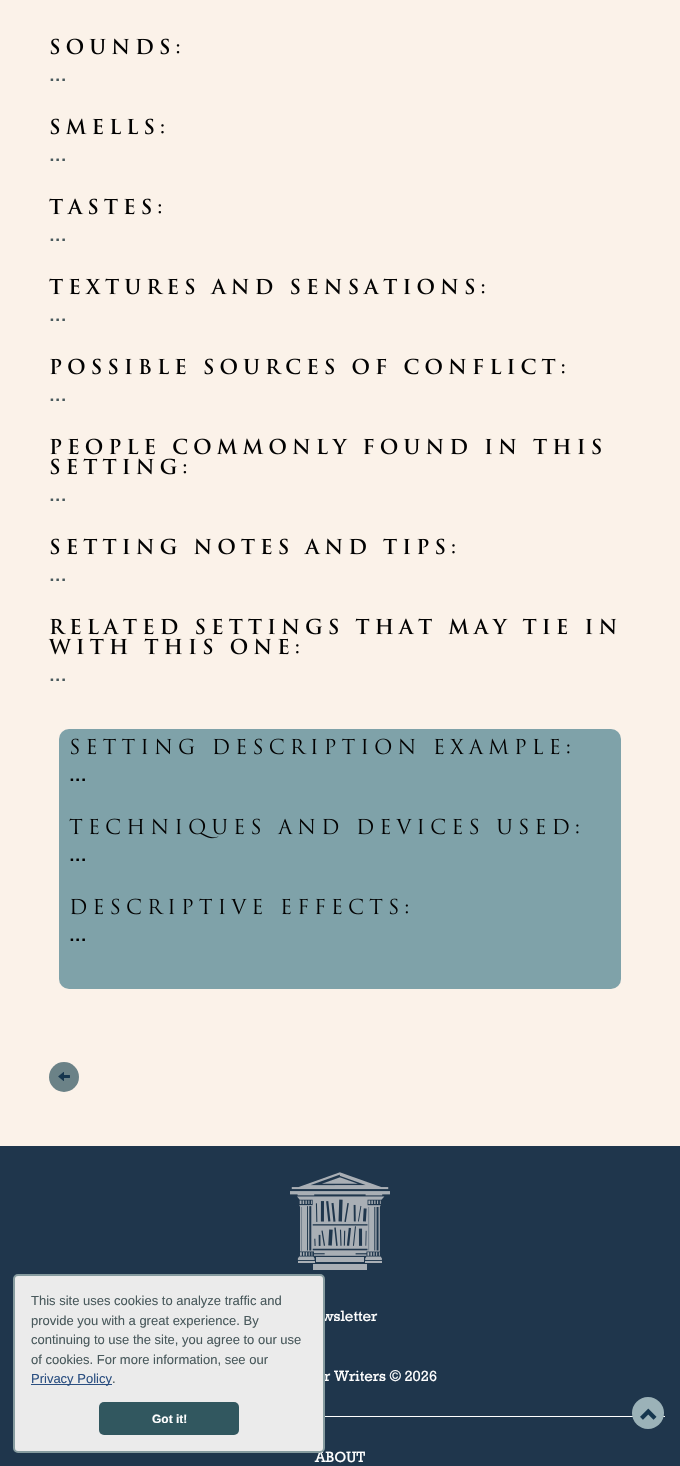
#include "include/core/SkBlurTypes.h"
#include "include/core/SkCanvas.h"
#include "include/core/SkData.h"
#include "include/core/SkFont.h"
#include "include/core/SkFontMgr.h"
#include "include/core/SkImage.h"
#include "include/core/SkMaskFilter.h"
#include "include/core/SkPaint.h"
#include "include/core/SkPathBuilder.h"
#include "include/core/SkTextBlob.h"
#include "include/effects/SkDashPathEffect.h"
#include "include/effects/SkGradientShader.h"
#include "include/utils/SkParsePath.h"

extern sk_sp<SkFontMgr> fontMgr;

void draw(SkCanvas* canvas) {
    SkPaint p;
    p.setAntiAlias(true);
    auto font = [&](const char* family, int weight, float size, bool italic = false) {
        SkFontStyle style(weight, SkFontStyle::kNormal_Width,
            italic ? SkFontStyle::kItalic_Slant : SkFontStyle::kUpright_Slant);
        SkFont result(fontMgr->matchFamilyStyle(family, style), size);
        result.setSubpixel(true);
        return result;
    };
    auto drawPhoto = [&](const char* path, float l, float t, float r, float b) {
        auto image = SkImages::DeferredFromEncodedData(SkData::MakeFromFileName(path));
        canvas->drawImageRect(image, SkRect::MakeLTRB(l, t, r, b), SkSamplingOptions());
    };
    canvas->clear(0xFFFBF2E9);
    drawPhoto("media/1.png", 50, 38, 180, 55);
    auto font1 = font("Rockwell", 400, 20);
    p.setColor(0xFF49595C);
    canvas->drawString("...", 49, 81, font1, p);
    drawPhoto("media/2.png", 50, 118, 164, 135);
    canvas->drawString("...", 49, 161, font1, p);
    drawPhoto("media/3.png", 49, 198, 161, 215);
    canvas->drawString("...", 49, 241, font1, p);
    drawPhoto("media/4.png", 49, 278, 485, 295);
    canvas->drawString("...", 49, 321, font1, p);
    drawPhoto("media/5.png", 50, 358, 565, 375);
    canvas->drawString("...", 49, 401, font1, p);
    drawPhoto("media/6.png", 50, 438, 601, 455);
    drawPhoto("media/7.png", 50, 458, 187, 475);
    canvas->drawString("...", 49, 501, font1, p);
    drawPhoto("media/8.png", 50, 538, 455, 555);
    canvas->drawString("...", 49, 581, font1, p);
    drawPhoto("media/9.png", 50, 618, 617, 635);
    drawPhoto("media/10.png", 48, 638, 299, 655);
    canvas->drawString("...", 49, 681, font1, p);
    p.setColor(0xFF7FA2A9);
    canvas->drawRoundRect(SkRect::MakeLTRB(59, 729, 621, 989), 10, 10, p);
    drawPhoto("media/11.png", 71, 738, 570, 755);
    p.setColor(0xFF020202);
    canvas->drawString("...", 69, 781, font1, p);
    drawPhoto("media/12.png", 69, 818, 579, 839);
    canvas->drawString("...", 69, 861, font1, p);
    drawPhoto("media/13.png", 71, 898, 408, 915);
    canvas->drawString("...", 69, 941, font1, p);
    p.setColor(0xFF6B8287);
    canvas->drawCircle(64, 1077, 15, p);
    drawPhoto("media/14.png", 58, 1072, 70, 1081);
    p.setColor(0xFF1F364C);
    canvas->drawRect(SkRect::MakeLTRB(0, 1146, 680, 1466), p);
    p.setColor(0xFFFFFFFF);
    canvas->drawRect(SkRect::MakeLTRB(325, 1416, 665, 1417), p);
    p.setColor(0xFF9BB2B8);
    canvas->drawCircle(648, 1413, 16, p);
    drawPhoto("media/15.png", 640, 1408, 657, 1420);
    auto font2 = font("Rockwell", 400, 15);
    p.setColor(0xFFFFFFFF);
    {
        const struct { const char* s; float x, y; } items[] = {
            {"wsletter", 322, 1321},
            {"r Writers © 2026", 324, 1381},
            {"ABOUT", 315, 1462},
        };
        for (auto [s, x, y] : items) {
            canvas->drawString(s, x, y, font2, p);
        }
    }
    p.setColor(0xFFEBEBEB);
    canvas->drawRoundRect(SkRect::MakeLTRB(14, 1275, 324, 1452), 4, 4, p);
    p.setStyle(SkPaint::kStroke_Style);
    p.setStrokeWidth(2);
    p.setColor(0xFF869B9F);
    canvas->drawRoundRect(SkRect::MakeLTRB(14, 1275, 324, 1452), 4, 4, p);
    auto font3 = font("Liberation Sans", 400, 13);
    p.setStyle(SkPaint::kFill_Style);
    p.setColor(0xFF49595C);
    {
        const struct { const char* s; float x, y; } items[] = {
            {"This site uses cookies to analyze traffic and", 31, 1305},
            {"provide you with a great experience. By", 31, 1325},
            {"continuing to use the site, you agree to our use", 31, 1344},
            {"of cookies. For more information, see our", 31, 1364},
        };
        for (auto [s, x, y] : items) {
            canvas->drawString(s, x, y, font3, p);
        }
    }
    p.setColor(0xFF2B4F81);
    canvas->drawRect(SkRect::MakeLTRB(31, 1384, 112, 1385), p);
    canvas->drawString("Privacy Policy", 31, 1383, font3, p);
    p.setColor(0xFF49595C);
    canvas->drawString(".", 112, 1383, font3, p);
    p.setColor(0xFF31575F);
    canvas->drawRoundRect(SkRect::MakeLTRB(99, 1402, 239, 1435), 5, 5, p);
    auto font4 = font("Liberation Sans", 700, 12);
    p.setColor(0xFFFFFFFF);
    canvas->drawString("Got it!", 152, 1423, font4, p);
    drawPhoto("media/16.png", 290, 1172, 390, 1270);
}
